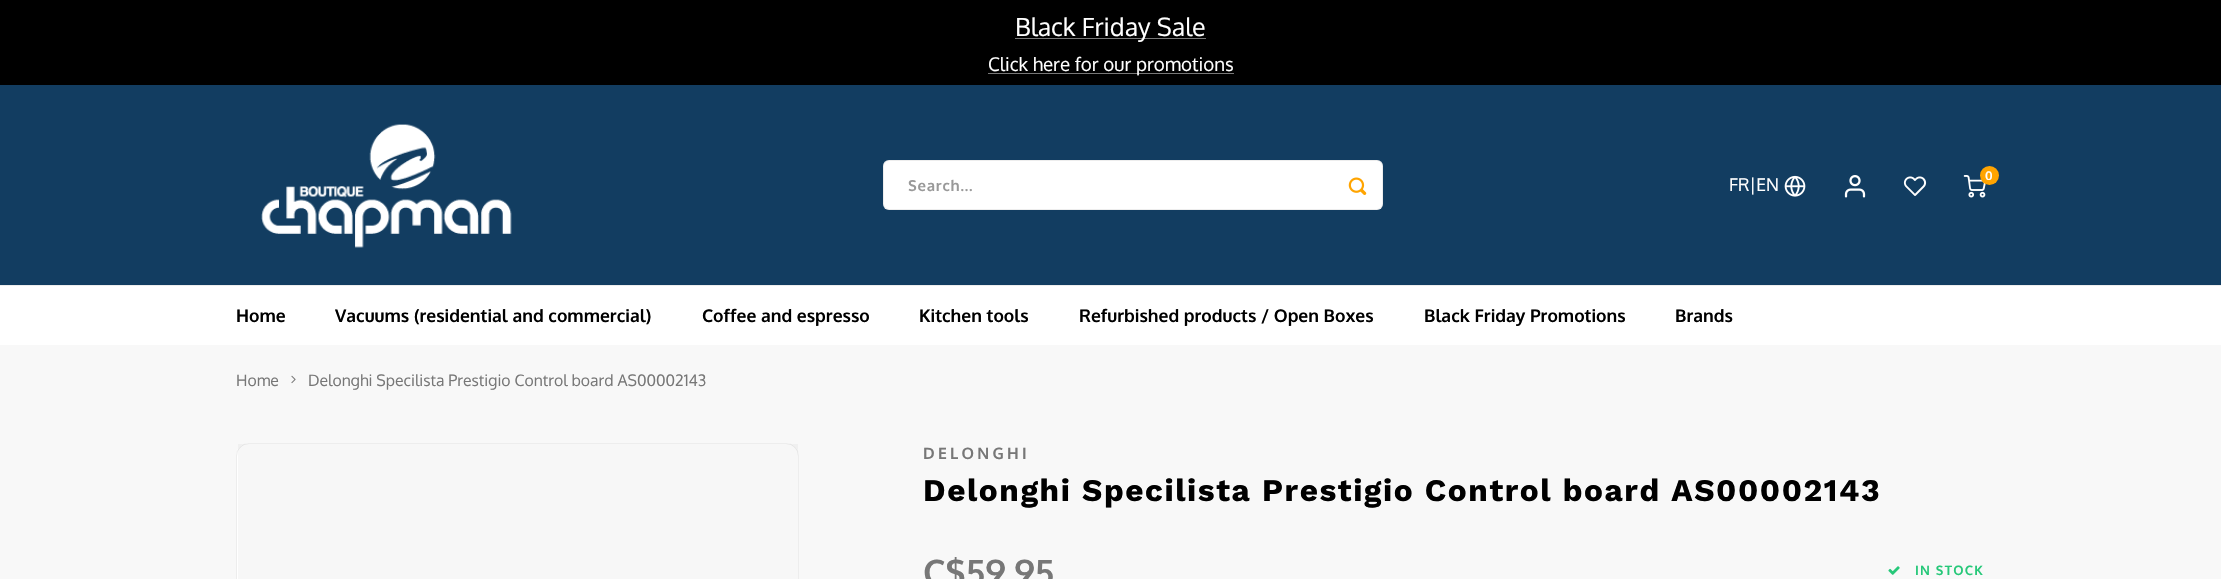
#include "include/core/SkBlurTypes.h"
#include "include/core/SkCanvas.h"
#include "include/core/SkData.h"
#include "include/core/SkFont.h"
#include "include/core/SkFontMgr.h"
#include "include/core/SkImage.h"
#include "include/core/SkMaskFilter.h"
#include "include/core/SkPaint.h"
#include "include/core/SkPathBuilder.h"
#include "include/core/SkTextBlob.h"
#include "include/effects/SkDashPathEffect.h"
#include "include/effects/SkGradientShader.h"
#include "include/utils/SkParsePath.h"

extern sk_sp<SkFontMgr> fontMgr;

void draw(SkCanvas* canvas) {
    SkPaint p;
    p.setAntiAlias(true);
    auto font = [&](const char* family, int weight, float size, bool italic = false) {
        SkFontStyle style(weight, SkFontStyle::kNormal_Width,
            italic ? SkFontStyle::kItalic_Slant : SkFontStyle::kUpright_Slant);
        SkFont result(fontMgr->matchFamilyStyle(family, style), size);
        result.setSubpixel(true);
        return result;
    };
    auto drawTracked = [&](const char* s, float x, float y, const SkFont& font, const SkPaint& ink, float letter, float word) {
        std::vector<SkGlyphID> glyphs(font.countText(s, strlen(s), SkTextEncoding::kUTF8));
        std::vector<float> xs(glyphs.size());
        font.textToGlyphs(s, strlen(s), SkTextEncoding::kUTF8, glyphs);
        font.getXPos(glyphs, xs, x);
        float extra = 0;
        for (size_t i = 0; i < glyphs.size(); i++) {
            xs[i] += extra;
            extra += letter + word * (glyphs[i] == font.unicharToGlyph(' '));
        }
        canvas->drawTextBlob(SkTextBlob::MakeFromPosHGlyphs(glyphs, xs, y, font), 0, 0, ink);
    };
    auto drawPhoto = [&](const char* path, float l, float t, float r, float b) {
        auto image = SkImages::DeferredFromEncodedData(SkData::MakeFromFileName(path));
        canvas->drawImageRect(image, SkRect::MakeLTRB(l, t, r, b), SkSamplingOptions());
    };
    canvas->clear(0xFFF8F8F8);
    {
        const struct { float l, t, r, b; SkColor color; } items[] = {
            {0, 85, 2221, 285, 0xFF123D61},
            {0, 0, 2221, 85, 0xFF000000},
            {1015, 38, 1206, 39, 0xFF777777},
        };
        for (auto [l, t, r, b, color] : items) {
            p.setColor(color);
            canvas->drawRect(SkRect::MakeLTRB(l, t, r, b), p);
        }
    }
    auto font1 = font("Oxygen", 400, 25);
    p.setColor(0xFFFFFFFF);
    canvas->drawString("Black Friday Sale", 1015, 36, font1, p);
    p.setColor(0xFF777777);
    canvas->drawRect(SkRect::MakeLTRB(988, 73, 1234, 74), p);
    auto font2 = font("Oxygen", 400, 18.75f);
    p.setColor(0xFFFFFFFF);
    canvas->drawString("Click here for our promotions", 988, 71, font2, p);
    drawPhoto("media/1.png", 261, 124, 512, 248);
    canvas->drawRoundRect(SkRect::MakeLTRB(883, 160, 1383, 210), 6, 6, p);
    p.setStyle(SkPaint::kStroke_Style);
    p.setStrokeWidth(1);
    p.setColor(0x12000000);
    canvas->drawRoundRect(SkRect::MakeLTRB(883.5f, 160.5f, 1382.5f, 209.5f), 5.5f, 5.5f, p);
    auto font3 = font("Oxygen", 700, 15);
    p.setStyle(SkPaint::kFill_Style);
    p.setColor(0xFF999999);
    drawTracked("Search...", 908, 191, font3, p, 0.75f, 0);
    drawPhoto("media/2.png", 1348, 177, 1367, 195);
    auto font4 = font("Oxygen", 400, 17.5f);
    p.setColor(0xFFFFFFFF);
    canvas->drawString("FR|EN", 1729, 191, font4, p);
    drawPhoto("media/3.png", 1784, 175, 1806, 197);
    drawPhoto("media/4.png", 1844, 175, 1866, 198);
    drawPhoto("media/5.png", 1903, 176, 1927, 196);
    drawPhoto("media/6.png", 1963, 175, 1986, 198);
    p.setColor(0xFFFFA400);
    canvas->drawCircle(1989.5f, 175.5f, 9.5f, p);
    auto font5 = font("Oxygen", 700, 12);
    p.setColor(0xFFFFFFFF);
    canvas->drawString("0", 1985, 180, font5, p);
    canvas->drawRect(SkRect::MakeLTRB(0, 286, 2221, 345), p);
    p.setColor(0xFFEDEDED);
    canvas->drawRect(SkRect::MakeLTRB(0, 285, 2221, 286), p);
    auto font6 = font("Oxygen", 700, 17.5f);
    p.setColor(0xFF000000);
    {
        const struct { const char* s; float x, y; } items[] = {
            {"Home", 236, 322},
            {"Vacuums (residential and commercial)", 335, 322},
            {"Coffee and espresso", 702, 322},
            {"Kitchen tools", 919, 322},
            {"Refurbished products / Open Boxes", 1079, 322},
            {"Black Friday Promotions", 1424, 322},
            {"Brands", 1675, 322},
        };
        for (auto [s, x, y] : items) {
            canvas->drawString(s, x, y, font6, p);
        }
    }
    auto font7 = font("Oxygen", 400, 15.75f);
    p.setColor(0xFF777777);
    canvas->drawString("Home", 236, 386, font7, p);
    drawPhoto("media/7.png", 291, 375, 296, 384);
    canvas->drawString("Delonghi Specilista Prestigio Control board AS00002143", 308, 386, font7, p);
    p.setColor(0xFFFFFFFF);
    canvas->drawRoundRect(SkRect::MakeLTRB(236, 443, 799, 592), 13, 13, p);
    p.setStyle(SkPaint::kStroke_Style);
    p.setColor(0x12000000);
    canvas->drawRoundRect(SkRect::MakeLTRB(236.5f, 443.5f, 798.5f, 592.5f), 12.5f, 12.5f, p);
    p.setStyle(SkPaint::kFill_Style);
    p.setColor(0x08000000);
    canvas->drawRect(SkRect::MakeLTRB(238, 444, 798, 579), p);
    auto font8 = font("Oxygen", 700, 15.75f);
    p.setColor(0xFF777777);
    drawTracked("DELONGHI", 923, 459, font8, p, 3.25f, 0);
    auto font9 = font("Work Sans", 700, 31.5f);
    p.setColor(0xFF000000);
    drawTracked("Delonghi Specilista Prestigio Control board AS00002143", 923, 501, font9, p, 1.57f, 0);
    auto font10 = font("Oxygen", 700, 35);
    p.setColor(0xFF777777);
    canvas->drawString("C$59.95", 923, 585, font10, p);
    drawPhoto("media/8.png", 1888, 566, 1900, 575);
    auto font11 = font("Oxygen", 700, 13);
    p.setColor(0xFF26C879);
    drawTracked("IN STOCK", 1915, 575, font11, p, 1.25f, 0);
}
